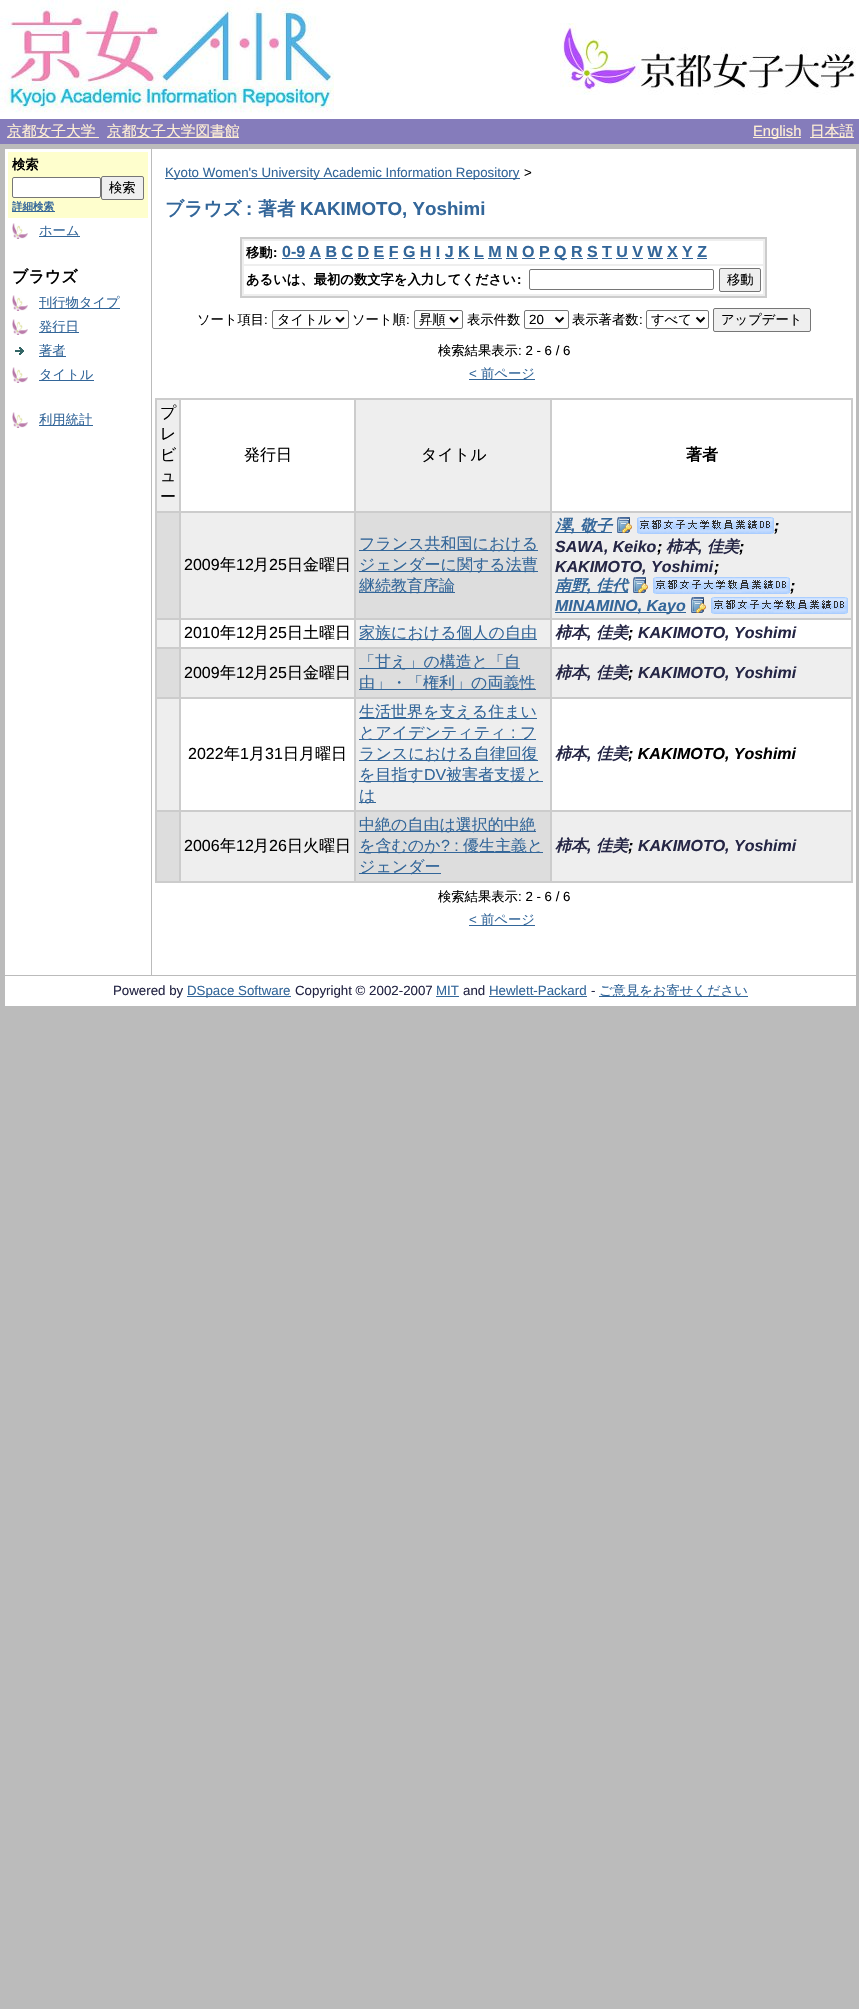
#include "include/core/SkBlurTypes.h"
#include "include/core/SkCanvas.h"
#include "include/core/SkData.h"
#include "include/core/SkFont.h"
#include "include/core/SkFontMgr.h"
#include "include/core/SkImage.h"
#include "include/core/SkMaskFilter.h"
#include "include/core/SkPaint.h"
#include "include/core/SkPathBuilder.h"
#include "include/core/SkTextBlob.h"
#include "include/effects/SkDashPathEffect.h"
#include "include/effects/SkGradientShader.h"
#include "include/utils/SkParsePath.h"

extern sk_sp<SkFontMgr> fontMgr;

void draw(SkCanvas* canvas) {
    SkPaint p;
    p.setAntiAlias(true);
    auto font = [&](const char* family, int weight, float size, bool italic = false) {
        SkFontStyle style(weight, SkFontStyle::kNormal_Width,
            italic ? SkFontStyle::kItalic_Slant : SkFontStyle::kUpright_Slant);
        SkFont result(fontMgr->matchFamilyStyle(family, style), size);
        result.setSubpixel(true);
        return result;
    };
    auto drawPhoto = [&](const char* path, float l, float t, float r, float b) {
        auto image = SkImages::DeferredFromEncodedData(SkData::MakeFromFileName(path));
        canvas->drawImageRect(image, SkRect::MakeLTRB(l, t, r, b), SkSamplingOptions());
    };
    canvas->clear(0xFFBBBBBB);
    p.setColor(0xFFFFFFFF);
    canvas->drawRect(SkRect::MakeLTRB(0, 0, 859, 119), p);
    drawPhoto("media/1.png", 0, 0, 334, 113);
    drawPhoto("media/2.png", 560, 23, 856, 95);
    p.setColor(0xFF857CBB);
    canvas->drawRect(SkRect::MakeLTRB(0, 119, 859, 144), p);
    p.setColor(0xFFFFEFD5);
    canvas->drawRect(SkRect::MakeLTRB(7, 137, 99, 138), p);
    auto font1 = font("WenQuanYi Zen Hei", 500, 14.75f);
    canvas->drawString("京都女子大学", 7, 136, font1, p);
    canvas->drawRect(SkRect::MakeLTRB(107, 137, 239, 138), p);
    canvas->drawString("京都女子大学図書館", 107, 136, font1, p);
    canvas->drawRect(SkRect::MakeLTRB(753, 137, 801, 138), p);
    auto font2 = font("Liberation Sans", 400, 14.75f);
    canvas->drawString("English", 753, 136, font2, p);
    canvas->drawRect(SkRect::MakeLTRB(810, 137, 854, 138), p);
    canvas->drawString("日本語", 810, 136, font1, p);
    p.setColor(0xFFFFFFFF);
    canvas->drawRect(SkRect::MakeLTRB(5, 149, 151, 975), p);
    p.setColor(0xFFFEFECD);
    canvas->drawRect(SkRect::MakeLTRB(8, 152, 148, 218), p);
    auto font3 = font("WenQuanYi Zen Hei", 700, 13.3f);
    p.setColor(0xFF000000);
    canvas->drawString("検索", 12, 169, font3, p);
    p.setColor(0xFFFFFFFF);
    canvas->drawRoundRect(SkRect::MakeLTRB(12.5f, 177.5f, 100.5f, 197.5f), 1.5f, 1.5f, p);
    p.setStyle(SkPaint::kStroke_Style);
    p.setStrokeWidth(1);
    p.setColor(0xFF767676);
    canvas->drawRoundRect(SkRect::MakeLTRB(12.5f, 177.5f, 100.5f, 197.5f), 1.5f, 1.5f, p);
    p.setStyle(SkPaint::kFill_Style);
    p.setColor(0xFFEFEFEF);
    canvas->drawRoundRect(SkRect::MakeLTRB(101.5f, 176.5f, 143.5f, 199.5f), 1.5f, 1.5f, p);
    p.setStyle(SkPaint::kStroke_Style);
    p.setColor(0xFF767676);
    canvas->drawRoundRect(SkRect::MakeLTRB(101.5f, 176.5f, 143.5f, 199.5f), 1.5f, 1.5f, p);
    auto font4 = font("WenQuanYi Zen Hei", 500, 13.3f);
    p.setStyle(SkPaint::kFill_Style);
    p.setColor(0xFF000000);
    canvas->drawString("検索", 109, 192, font4, p);
    p.setColor(0xFF336699);
    canvas->drawRect(SkRect::MakeLTRB(12, 211, 55, 212), p);
    auto font5 = font("WenQuanYi Zen Hei", 700, 10.5f);
    canvas->drawString("詳細検索", 12, 210, font5, p);
    drawPhoto("media/3.png", 12, 223, 28, 239);
    canvas->drawRect(SkRect::MakeLTRB(39, 236, 80, 237), p);
    canvas->drawString("ホーム", 39, 235, font4, p);
    auto font6 = font("WenQuanYi Zen Hei", 700, 16);
    p.setColor(0xFF000000);
    canvas->drawString("ブラウズ", 12, 282, font6, p);
    drawPhoto("media/3.png", 12, 295, 28, 311);
    p.setColor(0xFF336699);
    canvas->drawRect(SkRect::MakeLTRB(39, 308, 120, 309), p);
    canvas->drawString("刊行物タイプ", 39, 307, font4, p);
    drawPhoto("media/3.png", 12, 319, 28, 335);
    canvas->drawRect(SkRect::MakeLTRB(39, 332, 79, 333), p);
    canvas->drawString("発行日", 39, 331, font4, p);
    drawPhoto("media/4.png", 15, 347, 24, 355);
    canvas->drawRect(SkRect::MakeLTRB(39, 356, 66, 357), p);
    canvas->drawString("著者", 39, 355, font4, p);
    drawPhoto("media/3.png", 12, 367, 28, 383);
    canvas->drawRect(SkRect::MakeLTRB(39, 380, 94, 381), p);
    canvas->drawString("タイトル", 39, 379, font4, p);
    drawPhoto("media/3.png", 12, 412, 28, 428);
    canvas->drawRect(SkRect::MakeLTRB(39, 425, 93, 426), p);
    canvas->drawString("利用統計", 39, 424, font4, p);
    p.setColor(0xFFFFFFFF);
    canvas->drawRect(SkRect::MakeLTRB(152, 149, 856, 975), p);
    p.setColor(0xFF336699);
    canvas->drawRect(SkRect::MakeLTRB(165, 178, 520, 179), p);
    auto font7 = font("Liberation Sans", 400, 13.3f);
    canvas->drawString("Kyoto Women's University Academic Information Repository", 165, 177, font7, p);
    p.setColor(0xFF000000);
    canvas->drawString(">", 524, 177, font7, p);
    auto font8 = font("WenQuanYi Zen Hei", 700, 18.75f);
    p.setColor(0xFF336699);
    canvas->drawString("ブラウズ", 165, 215, font8, p);
    auto font9 = font("Liberation Sans", 700, 18.75f);
    canvas->drawString(":", 246, 215, font9, p);
    canvas->drawString("著者", 258, 215, font8, p);
    canvas->drawString("KAKIMOTO, Yoshimi", 300, 215, font9, p);
    {
        const struct { float l, t, r, b; SkColor color; } items[] = {
            {240, 237, 767, 298, 0xFFCCCCCC},
            {242, 239, 765, 296, 0xFFEEEEEE},
            {244, 241, 763, 264, 0xFFFFFFFF},
        };
        for (auto [l, t, r, b, color] : items) {
            p.setColor(color);
            canvas->drawRect(SkRect::MakeLTRB(l, t, r, b), p);
        }
    }
    p.setColor(0xFF000000);
    canvas->drawString("移動", 246, 257, font3, p);
    auto font10 = font("Liberation Sans", 700, 13.3f);
    canvas->drawString(":", 273, 257, font10, p);
    auto font11 = font("Liberation Sans", 700, 16);
    p.setColor(0xFF336699);
    canvas->drawString("0-9 A B C D E F G H I J K L M N O P", 282, 257, font11, p);
    canvas->drawRect(SkRect::MakeLTRB(282, 258, 305, 259), p);
    canvas->drawRect(SkRect::MakeLTRB(554, 258, 567, 259), p);
    canvas->drawString("Q R S T U V W X Y Z", 554, 257, font11, p);
    {
        const struct { float l, t, r, b; SkColor color; } items[] = {
            {309, 258, 321, 259, 0xFF336699},
            {325, 258, 337, 259, 0xFF336699},
            {341, 258, 353, 259, 0xFF336699},
            {358, 258, 369, 259, 0xFF336699},
            {374, 258, 384, 259, 0xFF336699},
            {389, 258, 398, 259, 0xFF336699},
            {403, 258, 415, 259, 0xFF336699},
            {420, 258, 431, 259, 0xFF336699},
            {436, 258, 440, 259, 0xFF336699},
            {445, 258, 454, 259, 0xFF336699},
            {458, 258, 470, 259, 0xFF336699},
            {474, 258, 484, 259, 0xFF336699},
            {488, 258, 502, 259, 0xFF336699},
            {506, 258, 518, 259, 0xFF336699},
            {522, 258, 535, 259, 0xFF336699},
            {539, 258, 550, 259, 0xFF336699},
            {571, 258, 583, 259, 0xFF336699},
            {587, 258, 598, 259, 0xFF336699},
            {602, 258, 612, 259, 0xFF336699},
            {616, 258, 628, 259, 0xFF336699},
            {632, 258, 643, 259, 0xFF336699},
            {648, 258, 663, 259, 0xFF336699},
            {667, 258, 678, 259, 0xFF336699},
            {682, 258, 693, 259, 0xFF336699},
            {697, 258, 707, 259, 0xFF336699},
            {244, 266, 763, 294, 0xFFFFFFFF},
        };
        for (auto [l, t, r, b, color] : items) {
            p.setColor(color);
            canvas->drawRect(SkRect::MakeLTRB(l, t, r, b), p);
        }
    }
    p.setColor(0xFF000000);
    canvas->drawString("あるいは、最初の数文字を入力してください", 246, 284, font3, p);
    canvas->drawString(":", 517, 284, font10, p);
    p.setStyle(SkPaint::kStroke_Style);
    p.setColor(0xFF767676);
    canvas->drawRoundRect(SkRect::MakeLTRB(529.5f, 269.5f, 713.5f, 289.5f), 1.5f, 1.5f, p);
    p.setStyle(SkPaint::kFill_Style);
    p.setColor(0xFFEFEFEF);
    canvas->drawRoundRect(SkRect::MakeLTRB(719.5f, 268.5f, 760.5f, 291.5f), 1.5f, 1.5f, p);
    p.setStyle(SkPaint::kStroke_Style);
    p.setColor(0xFF767676);
    canvas->drawRoundRect(SkRect::MakeLTRB(719.5f, 268.5f, 760.5f, 291.5f), 1.5f, 1.5f, p);
    p.setStyle(SkPaint::kFill_Style);
    p.setColor(0xFF000000);
    canvas->drawString("移動", 727, 284, font4, p);
    canvas->drawString("ソート項目", 197, 324, font4, p);
    canvas->drawString(":", 264, 324, font7, p);
    p.setStyle(SkPaint::kStroke_Style);
    p.setColor(0xFF767676);
    canvas->drawRoundRect(SkRect::MakeLTRB(272.5f, 310.5f, 348.5f, 328.5f), 1.5f, 1.5f, p);
    p.setStrokeWidth(2);
    p.setColor(0xFF000000);
    canvas->drawPath(SkPathBuilder().moveTo(336, 317.5f).lineTo(340, 321.5f).lineTo(344, 317.5f).detach(), p);
    p.setStyle(SkPaint::kFill_Style);
    canvas->drawString("タイトル", 277, 324, font4, p);
    canvas->drawString("ソート順", 352, 324, font4, p);
    canvas->drawString(":", 406, 324, font7, p);
    p.setStyle(SkPaint::kStroke_Style);
    p.setStrokeWidth(1);
    p.setColor(0xFF767676);
    canvas->drawRoundRect(SkRect::MakeLTRB(414.5f, 310.5f, 462.5f, 328.5f), 1.5f, 1.5f, p);
    p.setStrokeWidth(2);
    p.setColor(0xFF000000);
    canvas->drawPath(SkPathBuilder().moveTo(450, 317.5f).lineTo(454, 321.5f).lineTo(458, 317.5f).detach(), p);
    p.setStyle(SkPaint::kFill_Style);
    canvas->drawString("昇順", 419, 324, font4, p);
    canvas->drawString("表示件数", 467, 324, font4, p);
    p.setStyle(SkPaint::kStroke_Style);
    p.setStrokeWidth(1);
    p.setColor(0xFF767676);
    canvas->drawRoundRect(SkRect::MakeLTRB(524.5f, 310.5f, 568.5f, 328.5f), 1.5f, 1.5f, p);
    p.setStrokeWidth(2);
    p.setColor(0xFF000000);
    canvas->drawPath(SkPathBuilder().moveTo(555.5f, 317.5f).lineTo(559.5f, 321.5f).lineTo(563.5f, 317.5f).detach(), p);
    p.setStyle(SkPaint::kFill_Style);
    canvas->drawString("20", 529, 324, font7, p);
    canvas->drawString("表示著者数", 572, 324, font4, p);
    canvas->drawString(":", 639, 324, font7, p);
    p.setStyle(SkPaint::kStroke_Style);
    p.setStrokeWidth(1);
    p.setColor(0xFF767676);
    canvas->drawRoundRect(SkRect::MakeLTRB(646.5f, 310.5f, 708.5f, 328.5f), 1.5f, 1.5f, p);
    p.setStrokeWidth(2);
    p.setColor(0xFF000000);
    canvas->drawPath(SkPathBuilder().moveTo(696.5f, 317.5f).lineTo(700.5f, 321.5f).lineTo(704.5f, 317.5f).detach(), p);
    p.setStyle(SkPaint::kFill_Style);
    canvas->drawString("すべて", 651, 324, font4, p);
    p.setColor(0xFFEFEFEF);
    canvas->drawRoundRect(SkRect::MakeLTRB(713.5f, 308.5f, 810.5f, 331.5f), 1.5f, 1.5f, p);
    p.setStyle(SkPaint::kStroke_Style);
    p.setStrokeWidth(1);
    p.setColor(0xFF767676);
    canvas->drawRoundRect(SkRect::MakeLTRB(713.5f, 308.5f, 810.5f, 331.5f), 1.5f, 1.5f, p);
    p.setStyle(SkPaint::kFill_Style);
    p.setColor(0xFF000000);
    canvas->drawString("アップデート", 721, 324, font4, p);
    canvas->drawString("検索結果表示", 438, 355, font4, p);
    canvas->drawString(": 2 - 6 / 6", 518, 355, font7, p);
    p.setColor(0xFF336699);
    canvas->drawString("<", 469, 378, font7, p);
    canvas->drawRect(SkRect::MakeLTRB(469, 379, 535, 380), p);
    canvas->drawString("前ページ", 481, 378, font4, p);
    p.setColor(0xFFCCCCCC);
    canvas->drawRect(SkRect::MakeLTRB(155, 398, 853, 883), p);
    p.setColor(0xFFEEEEEE);
    canvas->drawRect(SkRect::MakeLTRB(157, 400, 179, 511), p);
    auto font12 = font("WenQuanYi Zen Hei", 500, 16);
    p.setColor(0xFF000000);
    {
        const struct { const char* s; float x, y; } items[] = {
            {"プ", 160, 418},
            {"レ", 160, 439},
            {"ビ", 160, 460},
            {"ュ", 160, 481},
            {"ー", 160, 502},
        };
        for (auto [s, x, y] : items) {
            canvas->drawString(s, x, y, font12, p);
        }
    }
    p.setColor(0xFFFFFFFF);
    canvas->drawRect(SkRect::MakeLTRB(181, 400, 354, 511), p);
    p.setColor(0xFF000000);
    canvas->drawString("発行日", 244, 460, font12, p);
    p.setColor(0xFFEEEEEE);
    canvas->drawRect(SkRect::MakeLTRB(356, 400, 550, 511), p);
    p.setColor(0xFF000000);
    canvas->drawString("タイトル", 421, 460, font12, p);
    p.setColor(0xFFFFFFFF);
    canvas->drawRect(SkRect::MakeLTRB(552, 400, 851, 511), p);
    p.setColor(0xFF000000);
    canvas->drawString("著者", 686, 460, font6, p);
    p.setColor(0xFFDDDDDD);
    canvas->drawRect(SkRect::MakeLTRB(157, 513, 179, 618), p);
    p.setColor(0xFFEEEEEE);
    canvas->drawRect(SkRect::MakeLTRB(181, 513, 354, 618), p);
    auto font13 = font("Liberation Sans", 400, 16);
    p.setColor(0xFF000000);
    canvas->drawString("2009", 184, 570, font13, p);
    canvas->drawString("年", 220, 570, font12, p);
    canvas->drawString("12", 236, 570, font13, p);
    canvas->drawString("月", 253, 570, font12, p);
    canvas->drawString("25", 269, 570, font13, p);
    canvas->drawString("日金曜日", 287, 570, font12, p);
    p.setColor(0xFFDDDDDD);
    canvas->drawRect(SkRect::MakeLTRB(356, 513, 550, 618), p);
    p.setColor(0xFF336699);
    canvas->drawRect(SkRect::MakeLTRB(359, 550, 538, 551), p);
    canvas->drawString("フランス共和国における", 359, 549, font12, p);
    canvas->drawRect(SkRect::MakeLTRB(359, 571, 538, 572), p);
    canvas->drawString("ジェンダーに関する法曹", 359, 570, font12, p);
    canvas->drawRect(SkRect::MakeLTRB(359, 592, 455, 593), p);
    canvas->drawString("継続教育序論", 359, 591, font12, p);
    p.setColor(0xFFEEEEEE);
    canvas->drawRect(SkRect::MakeLTRB(552, 513, 851, 618), p);
    p.setColor(0xFF336699);
    canvas->drawRect(SkRect::MakeLTRB(555, 532, 612, 533), p);
    auto font14 = font("WenQuanYi Zen Hei", 700, 16, true);
    canvas->drawString("澤", 555, 531, font14, p);
    canvas->drawString("敬子", 580, 531, font14, p);
    drawPhoto("media/5.png", 617, 517, 632, 533);
    drawPhoto("media/6.png", 637, 517, 774, 534);
    auto font15 = font("Liberation Sans", 700, 16, true);
    p.setColor(0xFF000000);
    canvas->drawString(";", 774, 531, font15, p);
    p.setColor(0xFF336699);
    canvas->drawString(",", 571, 531, font15, p);
    p.setColor(0xFF252645);
    canvas->drawString("SAWA, Keiko", 555, 552, font15, p);
    p.setColor(0xFF000000);
    canvas->drawString(";", 657, 552, font15, p);
    p.setColor(0xFF252645);
    canvas->drawString("柿本", 666, 552, font14, p);
    canvas->drawString("佳美", 707, 552, font14, p);
    p.setColor(0xFF000000);
    canvas->drawString(";", 739, 552, font15, p);
    p.setColor(0xFF252645);
    canvas->drawString(",", 698, 552, font15, p);
    canvas->drawString("KAKIMOTO, Yoshimi", 555, 572, font15, p);
    p.setColor(0xFF000000);
    canvas->drawString(";", 714, 572, font15, p);
    p.setColor(0xFF336699);
    canvas->drawRect(SkRect::MakeLTRB(555, 592, 628, 593), p);
    canvas->drawString("南野", 555, 591, font14, p);
    canvas->drawString("佳代", 596, 591, font14, p);
    drawPhoto("media/5.png", 633, 577, 648, 593);
    drawPhoto("media/6.png", 653, 577, 790, 594);
    p.setColor(0xFF000000);
    canvas->drawString(";", 790, 591, font15, p);
    p.setColor(0xFF336699);
    canvas->drawString(",", 587, 591, font15, p);
    canvas->drawRect(SkRect::MakeLTRB(555, 612, 686, 613), p);
    canvas->drawString("MINAMINO, Kayo", 555, 611, font15, p);
    drawPhoto("media/5.png", 691, 597, 706, 613);
    drawPhoto("media/6.png", 711, 597, 848, 614);
    p.setColor(0xFFEEEEEE);
    canvas->drawRect(SkRect::MakeLTRB(157, 620, 179, 647), p);
    p.setColor(0xFFFFFFFF);
    canvas->drawRect(SkRect::MakeLTRB(181, 620, 354, 647), p);
    p.setColor(0xFF000000);
    canvas->drawString("2010", 184, 638, font13, p);
    canvas->drawString("年", 220, 638, font12, p);
    canvas->drawString("12", 236, 638, font13, p);
    canvas->drawString("月", 253, 638, font12, p);
    canvas->drawString("25", 269, 638, font13, p);
    canvas->drawString("日土曜日", 287, 638, font12, p);
    p.setColor(0xFFEEEEEE);
    canvas->drawRect(SkRect::MakeLTRB(356, 620, 550, 647), p);
    p.setColor(0xFF336699);
    canvas->drawRect(SkRect::MakeLTRB(359, 639, 537, 640), p);
    canvas->drawString("家族における個人の自由", 359, 638, font12, p);
    p.setColor(0xFFFFFFFF);
    canvas->drawRect(SkRect::MakeLTRB(552, 620, 851, 647), p);
    p.setColor(0xFF252645);
    canvas->drawString("柿本", 555, 638, font14, p);
    canvas->drawString("佳美", 596, 638, font14, p);
    p.setColor(0xFF000000);
    canvas->drawString(";", 628, 638, font15, p);
    p.setColor(0xFF252645);
    canvas->drawString("KAKIMOTO, Yoshimi", 638, 638, font15, p);
    canvas->drawString(",", 587, 638, font15, p);
    p.setColor(0xFFDDDDDD);
    canvas->drawRect(SkRect::MakeLTRB(157, 649, 179, 697), p);
    p.setColor(0xFFEEEEEE);
    canvas->drawRect(SkRect::MakeLTRB(181, 649, 354, 697), p);
    p.setColor(0xFF000000);
    canvas->drawString("2009", 184, 678, font13, p);
    canvas->drawString("年", 220, 678, font12, p);
    canvas->drawString("12", 236, 678, font13, p);
    canvas->drawString("月", 253, 678, font12, p);
    canvas->drawString("25", 269, 678, font13, p);
    canvas->drawString("日金曜日", 287, 678, font12, p);
    p.setColor(0xFFDDDDDD);
    canvas->drawRect(SkRect::MakeLTRB(356, 649, 550, 697), p);
    p.setColor(0xFF336699);
    canvas->drawRect(SkRect::MakeLTRB(359, 668, 520, 669), p);
    canvas->drawString("「甘え」の構造と「自", 359, 667, font12, p);
    canvas->drawRect(SkRect::MakeLTRB(359, 689, 536, 690), p);
    canvas->drawString("由」・「権利」の両義性", 359, 688, font12, p);
    p.setColor(0xFFEEEEEE);
    canvas->drawRect(SkRect::MakeLTRB(552, 649, 851, 697), p);
    p.setColor(0xFF252645);
    canvas->drawString("柿本", 555, 678, font14, p);
    canvas->drawString("佳美", 596, 678, font14, p);
    p.setColor(0xFF000000);
    canvas->drawString(";", 628, 678, font15, p);
    p.setColor(0xFF252645);
    canvas->drawString("KAKIMOTO, Yoshimi", 638, 678, font15, p);
    canvas->drawString(",", 587, 678, font15, p);
    p.setColor(0xFFEEEEEE);
    canvas->drawRect(SkRect::MakeLTRB(157, 699, 179, 810), p);
    p.setColor(0xFFFFFFFF);
    canvas->drawRect(SkRect::MakeLTRB(181, 699, 354, 810), p);
    p.setColor(0xFF000000);
    canvas->drawString("2022", 188, 759, font13, p);
    canvas->drawString("年", 224, 759, font12, p);
    canvas->drawString("1", 240, 759, font13, p);
    canvas->drawString("月", 249, 759, font12, p);
    canvas->drawString("31", 265, 759, font13, p);
    canvas->drawString("日月曜日", 283, 759, font12, p);
    p.setColor(0xFFEEEEEE);
    canvas->drawRect(SkRect::MakeLTRB(356, 699, 550, 810), p);
    p.setColor(0xFF336699);
    canvas->drawRect(SkRect::MakeLTRB(359, 718, 537, 719), p);
    canvas->drawString("生活世界を支える住まい", 359, 717, font12, p);
    canvas->drawRect(SkRect::MakeLTRB(359, 739, 536, 740), p);
    canvas->drawString("とアイデンティティ", 359, 738, font12, p);
    canvas->drawString(":", 511, 738, font13, p);
    canvas->drawString("フ", 520, 738, font12, p);
    canvas->drawRect(SkRect::MakeLTRB(359, 760, 538, 761), p);
    canvas->drawString("ランスにおける自律回復", 359, 759, font12, p);
    canvas->drawRect(SkRect::MakeLTRB(359, 781, 543, 782), p);
    canvas->drawString("を目指す", 359, 780, font12, p);
    canvas->drawString("DV", 424, 780, font13, p);
    canvas->drawString("被害者支援と", 446, 780, font12, p);
    canvas->drawRect(SkRect::MakeLTRB(359, 802, 376, 803), p);
    canvas->drawString("は", 359, 801, font12, p);
    p.setColor(0xFFFFFFFF);
    canvas->drawRect(SkRect::MakeLTRB(552, 699, 851, 810), p);
    p.setColor(0xFF252645);
    canvas->drawString("柿本", 555, 759, font14, p);
    canvas->drawString("佳美", 596, 759, font14, p);
    p.setColor(0xFF000000);
    canvas->drawString("; KAKIMOTO, Yoshimi", 628, 759, font15, p);
    p.setColor(0xFF252645);
    canvas->drawString(",", 587, 759, font15, p);
    p.setColor(0xFFDDDDDD);
    canvas->drawRect(SkRect::MakeLTRB(157, 812, 179, 881), p);
    p.setColor(0xFFEEEEEE);
    canvas->drawRect(SkRect::MakeLTRB(181, 812, 354, 881), p);
    p.setColor(0xFF000000);
    canvas->drawString("2006", 184, 851, font13, p);
    canvas->drawString("年", 220, 851, font12, p);
    canvas->drawString("12", 236, 851, font13, p);
    canvas->drawString("月", 253, 851, font12, p);
    canvas->drawString("26", 269, 851, font13, p);
    canvas->drawString("日火曜日", 287, 851, font12, p);
    p.setColor(0xFFDDDDDD);
    canvas->drawRect(SkRect::MakeLTRB(356, 812, 550, 881), p);
    p.setColor(0xFF336699);
    canvas->drawRect(SkRect::MakeLTRB(359, 831, 536, 832), p);
    canvas->drawString("中絶の自由は選択的中絶", 359, 830, font12, p);
    canvas->drawRect(SkRect::MakeLTRB(359, 852, 543, 853), p);
    canvas->drawString("を含むのか", 359, 851, font12, p);
    canvas->drawString("? :", 441, 851, font13, p);
    canvas->drawString("優生主義と", 463, 851, font12, p);
    canvas->drawRect(SkRect::MakeLTRB(359, 873, 441, 874), p);
    canvas->drawString("ジェンダー", 359, 872, font12, p);
    p.setColor(0xFFEEEEEE);
    canvas->drawRect(SkRect::MakeLTRB(552, 812, 851, 881), p);
    p.setColor(0xFF252645);
    canvas->drawString("柿本", 555, 851, font14, p);
    canvas->drawString("佳美", 596, 851, font14, p);
    p.setColor(0xFF000000);
    canvas->drawString(";", 628, 851, font15, p);
    p.setColor(0xFF252645);
    canvas->drawString("KAKIMOTO, Yoshimi", 638, 851, font15, p);
    canvas->drawString(",", 587, 851, font15, p);
    p.setColor(0xFF000000);
    canvas->drawString("検索結果表示", 438, 901, font4, p);
    canvas->drawString(": 2 - 6 / 6", 518, 901, font7, p);
    p.setColor(0xFF336699);
    canvas->drawString("<", 469, 924, font7, p);
    canvas->drawRect(SkRect::MakeLTRB(469, 925, 535, 926), p);
    canvas->drawString("前ページ", 481, 924, font4, p);
    p.setColor(0xFFFFFFFF);
    canvas->drawRect(SkRect::MakeLTRB(5, 976, 856, 1006), p);
    p.setColor(0xFF252645);
    canvas->drawString("Powered by", 113, 995, font7, p);
    p.setColor(0xFF336699);
    canvas->drawRect(SkRect::MakeLTRB(187, 996, 291, 997), p);
    canvas->drawString("DSpace Software", 187, 995, font7, p);
    p.setColor(0xFF252645);
    canvas->drawString("Copyright © 2002-2007", 295, 995, font7, p);
    p.setColor(0xFF336699);
    canvas->drawString("MIT", 436, 995, font7, p);
    canvas->drawRect(SkRect::MakeLTRB(436, 996, 459, 997), p);
    p.setColor(0xFF252645);
    canvas->drawString("and", 463, 995, font7, p);
    p.setColor(0xFF336699);
    canvas->drawString("Hewlett-Packard", 489, 995, font7, p);
    canvas->drawRect(SkRect::MakeLTRB(489, 996, 587, 997), p);
    p.setColor(0xFF252645);
    canvas->drawString("-", 591, 995, font7, p);
    p.setColor(0xFF336699);
    canvas->drawRect(SkRect::MakeLTRB(599, 996, 748, 997), p);
    canvas->drawString("ご意見をお寄せください", 599, 995, font4, p);
}
